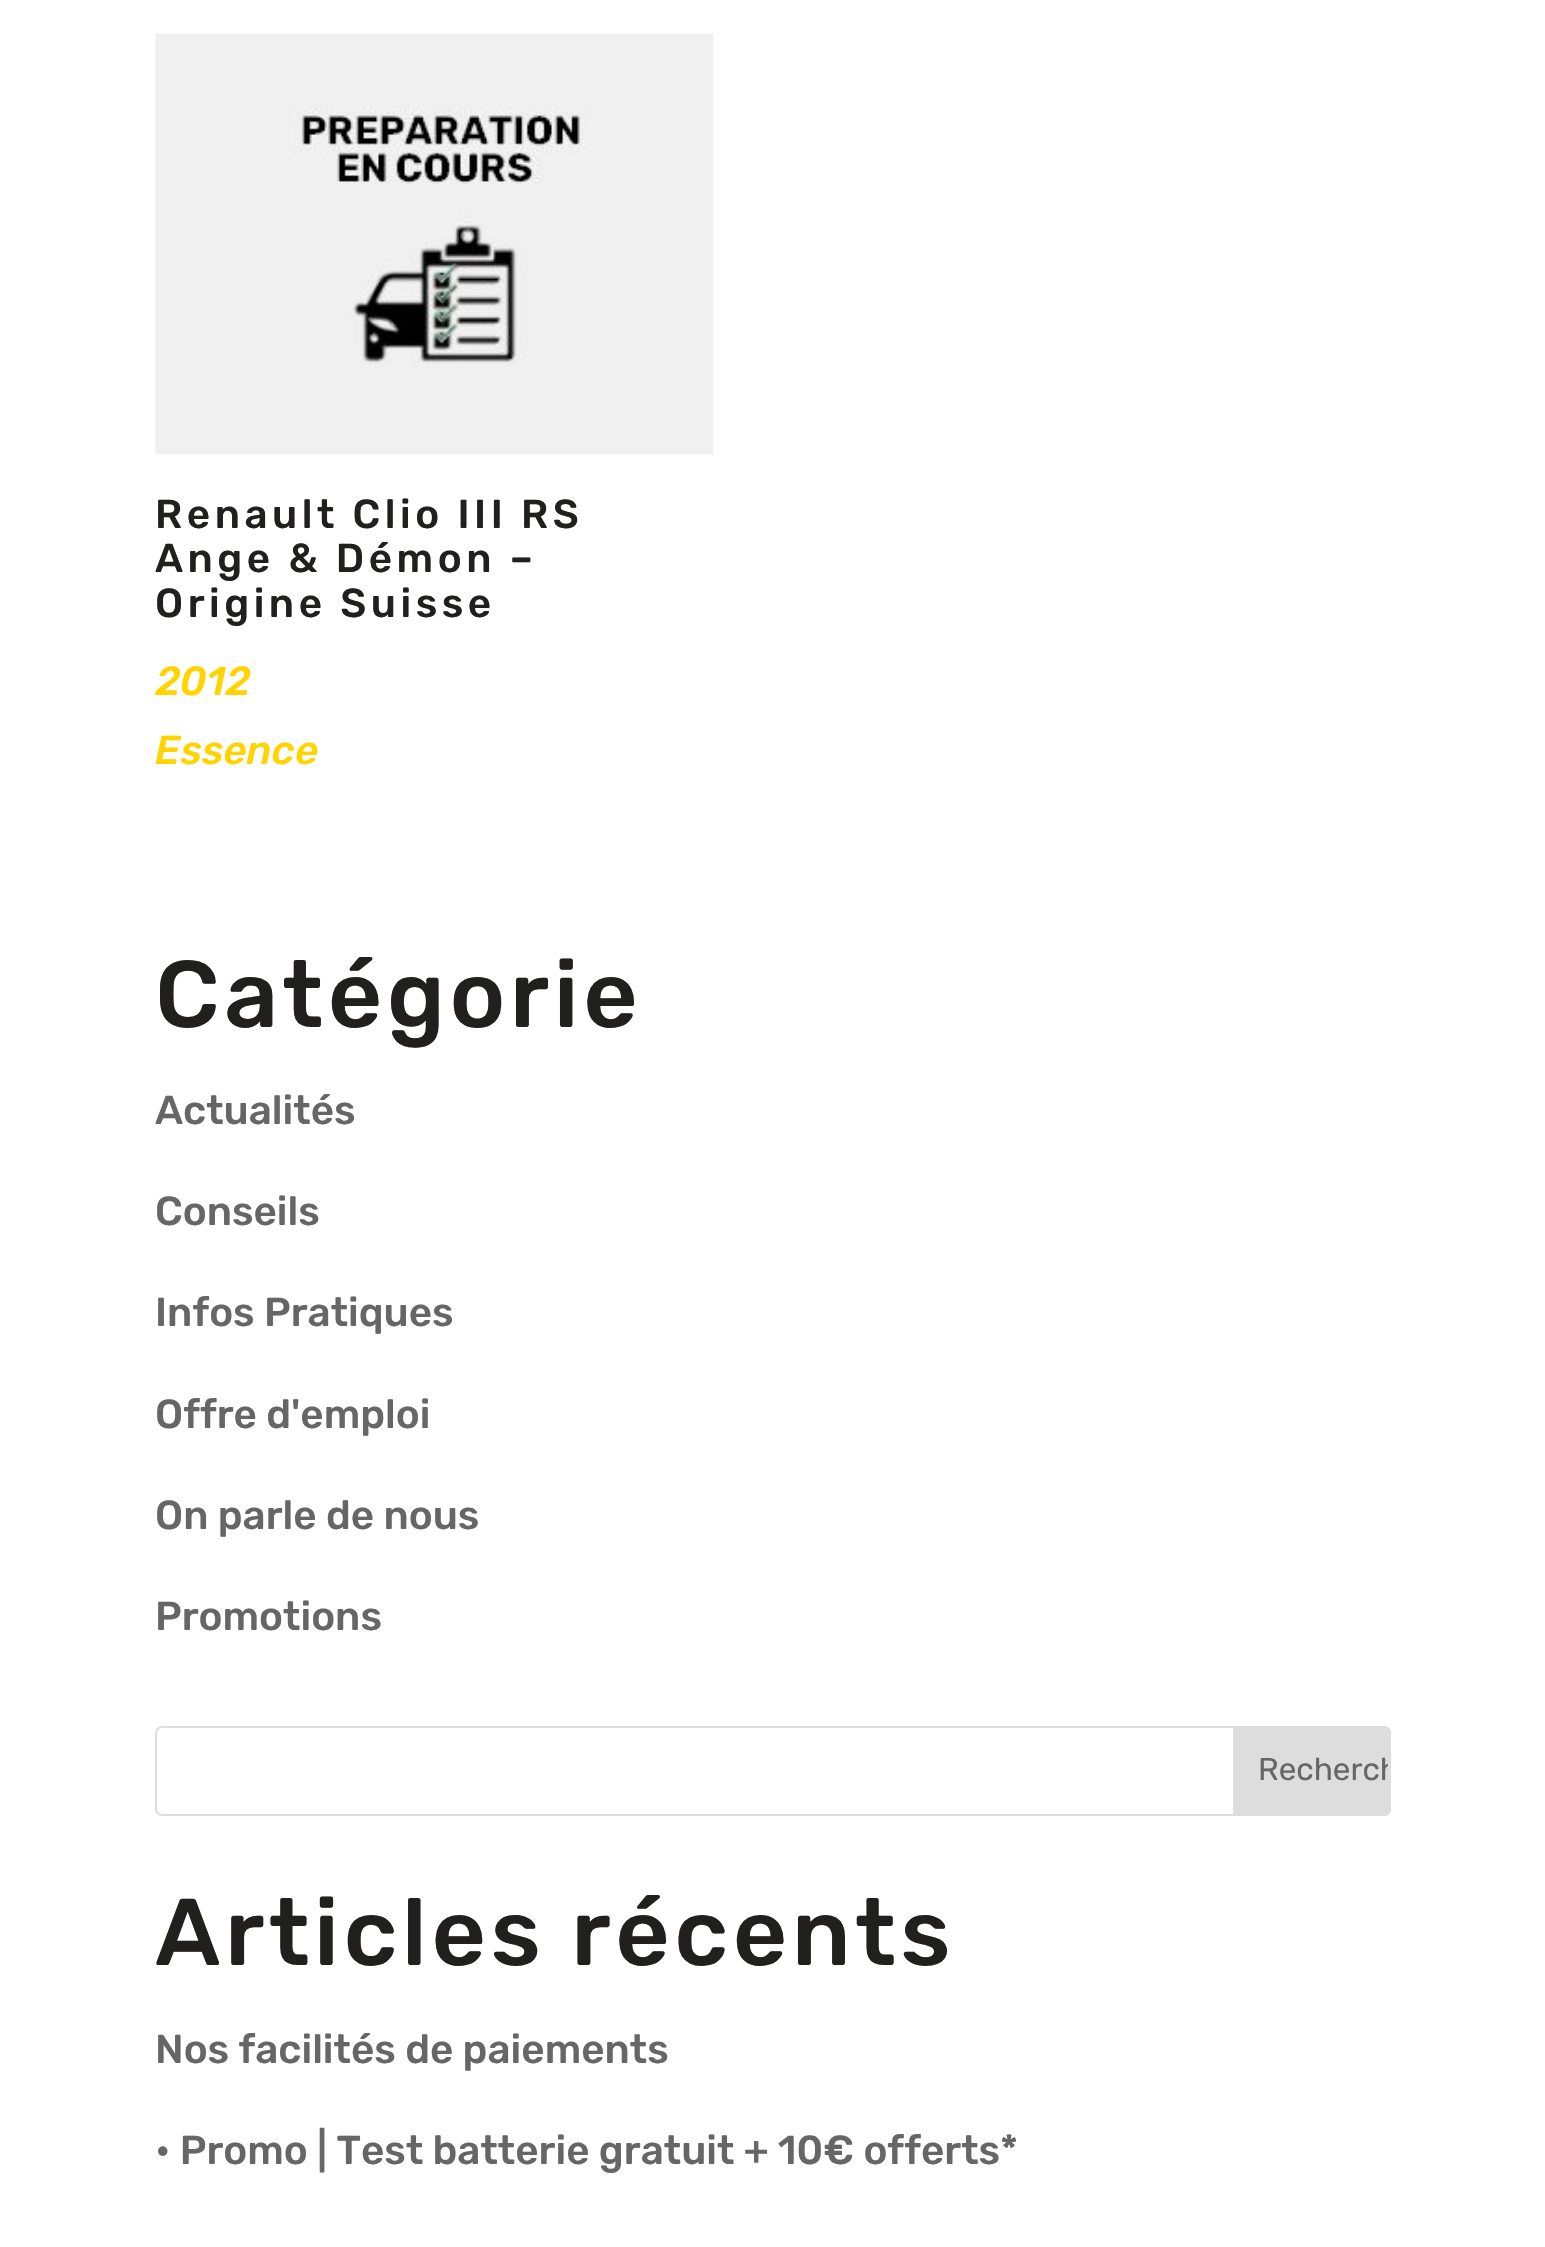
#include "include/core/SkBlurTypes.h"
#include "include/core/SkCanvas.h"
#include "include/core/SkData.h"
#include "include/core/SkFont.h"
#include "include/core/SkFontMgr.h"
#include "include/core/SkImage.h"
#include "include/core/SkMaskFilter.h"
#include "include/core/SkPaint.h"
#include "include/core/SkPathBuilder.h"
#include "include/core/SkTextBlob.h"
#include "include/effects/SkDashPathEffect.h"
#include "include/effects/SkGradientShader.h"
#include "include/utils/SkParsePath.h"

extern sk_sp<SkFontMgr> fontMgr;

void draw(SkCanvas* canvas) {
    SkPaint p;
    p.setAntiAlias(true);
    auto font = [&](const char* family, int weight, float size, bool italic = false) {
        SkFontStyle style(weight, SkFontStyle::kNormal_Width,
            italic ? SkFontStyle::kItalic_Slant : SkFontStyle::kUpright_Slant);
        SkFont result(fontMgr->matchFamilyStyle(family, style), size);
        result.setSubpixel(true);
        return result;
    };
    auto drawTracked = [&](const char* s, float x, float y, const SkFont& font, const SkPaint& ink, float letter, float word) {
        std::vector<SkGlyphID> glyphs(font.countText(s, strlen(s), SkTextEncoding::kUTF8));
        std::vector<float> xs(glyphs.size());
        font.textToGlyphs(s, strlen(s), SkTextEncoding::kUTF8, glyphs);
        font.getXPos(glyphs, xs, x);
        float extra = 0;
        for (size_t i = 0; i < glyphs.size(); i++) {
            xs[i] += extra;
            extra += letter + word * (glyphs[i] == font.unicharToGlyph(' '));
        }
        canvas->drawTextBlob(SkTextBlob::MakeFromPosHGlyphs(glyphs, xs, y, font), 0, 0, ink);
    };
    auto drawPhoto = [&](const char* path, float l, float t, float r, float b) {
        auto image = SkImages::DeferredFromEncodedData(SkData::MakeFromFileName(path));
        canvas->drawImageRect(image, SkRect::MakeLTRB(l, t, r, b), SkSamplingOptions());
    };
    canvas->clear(0xFFFFFFFF);
    drawPhoto("media/1.png", 155, 33, 714, 455);
    auto font1 = font("Rubik", 500, 40.5f);
    p.setColor(0xFF22201F);
    {
        const struct { const char* s; float x, y; } items[] = {
            {"Renault Clio III RS", 155, 528},
            {"Ange & Démon –", 155, 572},
            {"Origine Suisse", 155, 617},
        };
        for (auto [s, x, y] : items) {
            drawTracked(s, x, y, font1, p, 4.5f, 0);
        }
    }
    auto font2 = font("Rubik", 500, 40.5f, true);
    p.setColor(0xFFFFD400);
    canvas->drawString("2012", 155, 695, font2, p);
    canvas->drawString("Essence", 155, 764, font2, p);
    auto font3 = font("Rubik", 500, 94.5f);
    p.setColor(0xFF22201F);
    drawTracked("Catégorie", 155, 1027, font3, p, 4.5f, 0);
    p.setColor(0xFF666666);
    {
        const struct { const char* s; float x, y; } items[] = {
            {"Actualités", 155, 1124},
            {"Conseils", 155, 1225},
            {"Infos Pratiques", 155, 1326},
            {"Offre d'emploi", 155, 1428},
            {"On parle de nous", 155, 1529},
            {"Promotions", 155, 1630},
        };
        for (auto [s, x, y] : items) {
            canvas->drawString(s, x, y, font1, p);
        }
    }
    p.setStyle(SkPaint::kStroke_Style);
    p.setStrokeWidth(2);
    p.setColor(0xFFDDDDDD);
    canvas->drawRoundRect(SkRect::MakeLTRB(156, 1727, 1390, 1815), 6, 6, p);
    p.setStyle(SkPaint::kFill_Style);
    canvas->drawPath(SkPathBuilder().moveTo(1234, 1727).lineTo(1384, 1727).cubicTo(1387.5f, 1727, 1390, 1729.5f, 1390, 1733).lineTo(1390, 1809).cubicTo(1390, 1812.5f, 1387.5f, 1815, 1384, 1815).lineTo(1234, 1815).close().detach(), p);
    p.setStyle(SkPaint::kStroke_Style);
    canvas->drawPath(SkPathBuilder().moveTo(1234, 1727).lineTo(1384, 1727).cubicTo(1387.5f, 1727, 1390, 1729.5f, 1390, 1733).lineTo(1390, 1809).cubicTo(1390, 1812.5f, 1387.5f, 1815, 1384, 1815).lineTo(1234, 1815).close().detach(), p);
    canvas->save();
    canvas->clipPath(SkPathBuilder().moveTo(1235, 1728).lineTo(1383, 1728).cubicTo(1386, 1728, 1388, 1730, 1388, 1733).lineTo(1388, 1809).cubicTo(1388, 1812, 1386, 1814, 1383, 1814).lineTo(1235, 1814).close().detach(), true);
    auto font4 = font("Rubik", 400, 31.5f);
    p.setStyle(SkPaint::kFill_Style);
    p.setColor(0xFF666666);
    canvas->drawString("Recherch", 1258, 1780, font4, p);
    canvas->restore();
    p.setColor(0xFF22201F);
    drawTracked("Articles récents", 155, 1965, font3, p, 4.5f, 0);
    p.setColor(0xFF666666);
    canvas->drawString("Nos facilités de paiements", 155, 2063, font1, p);
    canvas->drawString("• Promo | Test batterie gratuit + 10€ offerts*", 155, 2164, font1, p);
}
